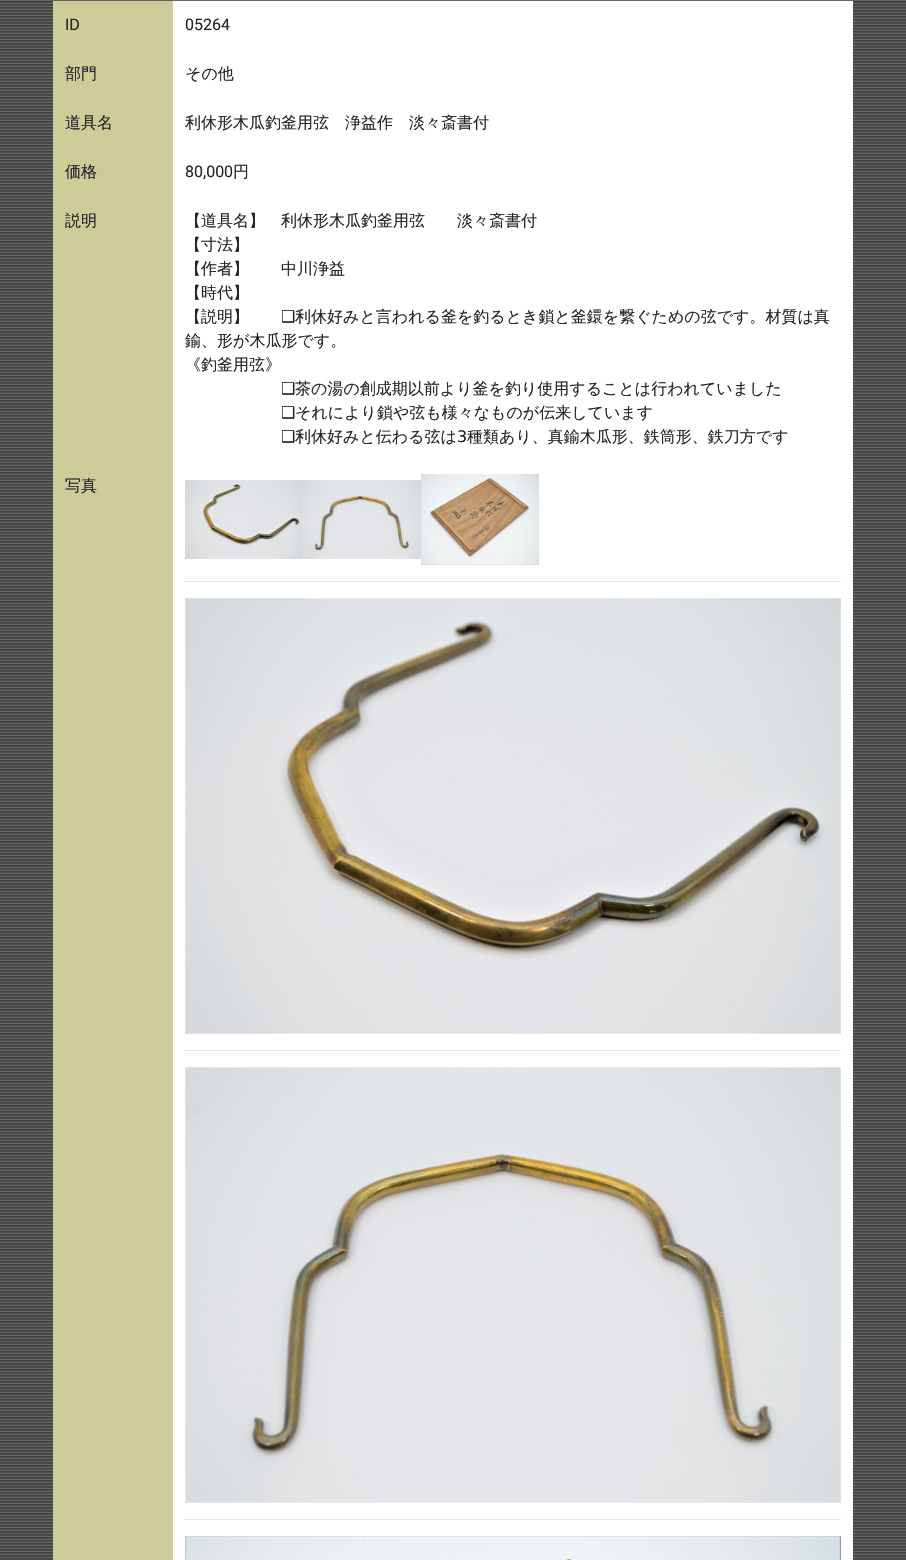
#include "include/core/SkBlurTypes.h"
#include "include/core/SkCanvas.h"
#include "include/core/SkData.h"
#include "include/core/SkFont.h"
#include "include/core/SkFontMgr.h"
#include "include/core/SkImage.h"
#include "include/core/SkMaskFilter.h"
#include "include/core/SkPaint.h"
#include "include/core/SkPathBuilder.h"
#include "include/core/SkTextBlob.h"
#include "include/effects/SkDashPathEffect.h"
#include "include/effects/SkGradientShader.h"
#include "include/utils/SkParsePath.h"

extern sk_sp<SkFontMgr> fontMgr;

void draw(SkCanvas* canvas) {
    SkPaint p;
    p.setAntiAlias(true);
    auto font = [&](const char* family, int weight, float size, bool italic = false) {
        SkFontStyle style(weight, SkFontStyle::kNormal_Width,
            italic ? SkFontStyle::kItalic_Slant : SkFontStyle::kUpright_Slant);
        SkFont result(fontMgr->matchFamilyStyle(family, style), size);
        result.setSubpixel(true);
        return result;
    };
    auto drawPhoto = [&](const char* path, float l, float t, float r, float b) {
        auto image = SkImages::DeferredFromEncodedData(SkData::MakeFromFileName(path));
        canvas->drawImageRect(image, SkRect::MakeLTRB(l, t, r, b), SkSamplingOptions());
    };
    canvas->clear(0xFFFFFFFF);
    drawPhoto("media/1.png", 0, 0, 906, 1560);
    p.setColor(0xFFCCCC99);
    canvas->drawRect(SkRect::MakeLTRB(53, 1, 173, 1560), p);
    auto font1 = font("Roboto", 400, 16);
    p.setColor(0xFF212529);
    canvas->drawString("ID", 65, 30, font1, p);
    p.setColor(0xFFFFFFFF);
    canvas->drawRect(SkRect::MakeLTRB(173, 1, 853, 1560), p);
    p.setColor(0xFF212529);
    canvas->drawString("05264", 185, 30, font1, p);
    auto font2 = font("WenQuanYi Zen Hei", 500, 16);
    {
        const struct { const char* s; float x, y; } items[] = {
            {"部門", 65, 79},
            {"その他", 185, 79},
            {"道具名", 65, 128},
            {"利休形木瓜釣釜用弦　浄益作　淡々斎書付", 185, 128},
            {"価格", 65, 177},
        };
        for (auto [s, x, y] : items) {
            canvas->drawString(s, x, y, font2, p);
        }
    }
    canvas->drawString("80,000", 185, 177, font1, p);
    {
        const struct { const char* s; float x, y; } items[] = {
            {"円", 233, 177},
            {"説明", 65, 226},
            {"【道具名】　利休形木瓜釣釜用弦　　淡々斎書付", 185, 226},
            {"【寸法】", 185, 250},
            {"【作者】　　中川浄益", 185, 274},
            {"【時代】", 185, 298},
            {"【説明】", 185, 322},
        };
        for (auto [s, x, y] : items) {
            canvas->drawString(s, x, y, font2, p);
        }
    }
    auto font3 = font("DejaVu Sans", 400, 16);
    canvas->drawString("❑", 281, 322, font3, p);
    {
        const struct { const char* s; float x, y; } items[] = {
            {"利休好みと言われる釜を釣るとき鎖と釜鐶を繋ぐための弦です。材質は真", 295, 322},
            {"鍮、形が木瓜形です。", 185, 346},
            {"《釣釜用弦》", 185, 370},
        };
        for (auto [s, x, y] : items) {
            canvas->drawString(s, x, y, font2, p);
        }
    }
    canvas->drawString("❑", 281, 394, font3, p);
    canvas->drawString("茶の湯の創成期以前より釜を釣り使用することは行われていました", 295, 394, font2, p);
    canvas->drawString("❑", 281, 418, font3, p);
    canvas->drawString("それにより鎖や弦も様々なものが伝来しています", 295, 418, font2, p);
    canvas->drawString("❑", 281, 442, font3, p);
    canvas->drawString("利休好みと伝わる弦は", 295, 442, font2, p);
    canvas->drawString("3", 457, 442, font3, p);
    canvas->drawString("種類あり、真鍮木瓜形、鉄筒形、鉄刀方です", 467, 442, font2, p);
    canvas->drawString("写真", 65, 491, font2, p);
    drawPhoto("media/2.png", 185, 480, 303, 559);
    drawPhoto("media/3.png", 303, 480, 421, 559);
    drawPhoto("media/4.png", 421, 474, 539, 565);
    p.setColor(0xFFE6E6E6);
    canvas->drawRect(SkRect::MakeLTRB(185, 581, 841, 582), p);
    drawPhoto("media/5.png", 185, 598, 841, 1034);
    canvas->drawRect(SkRect::MakeLTRB(185, 1050, 841, 1051), p);
    drawPhoto("media/6.png", 185, 1067, 841, 1503);
    canvas->drawRect(SkRect::MakeLTRB(185, 1519, 841, 1520), p);
    drawPhoto("media/7.png", 185, 1536, 841, 1560);
}
